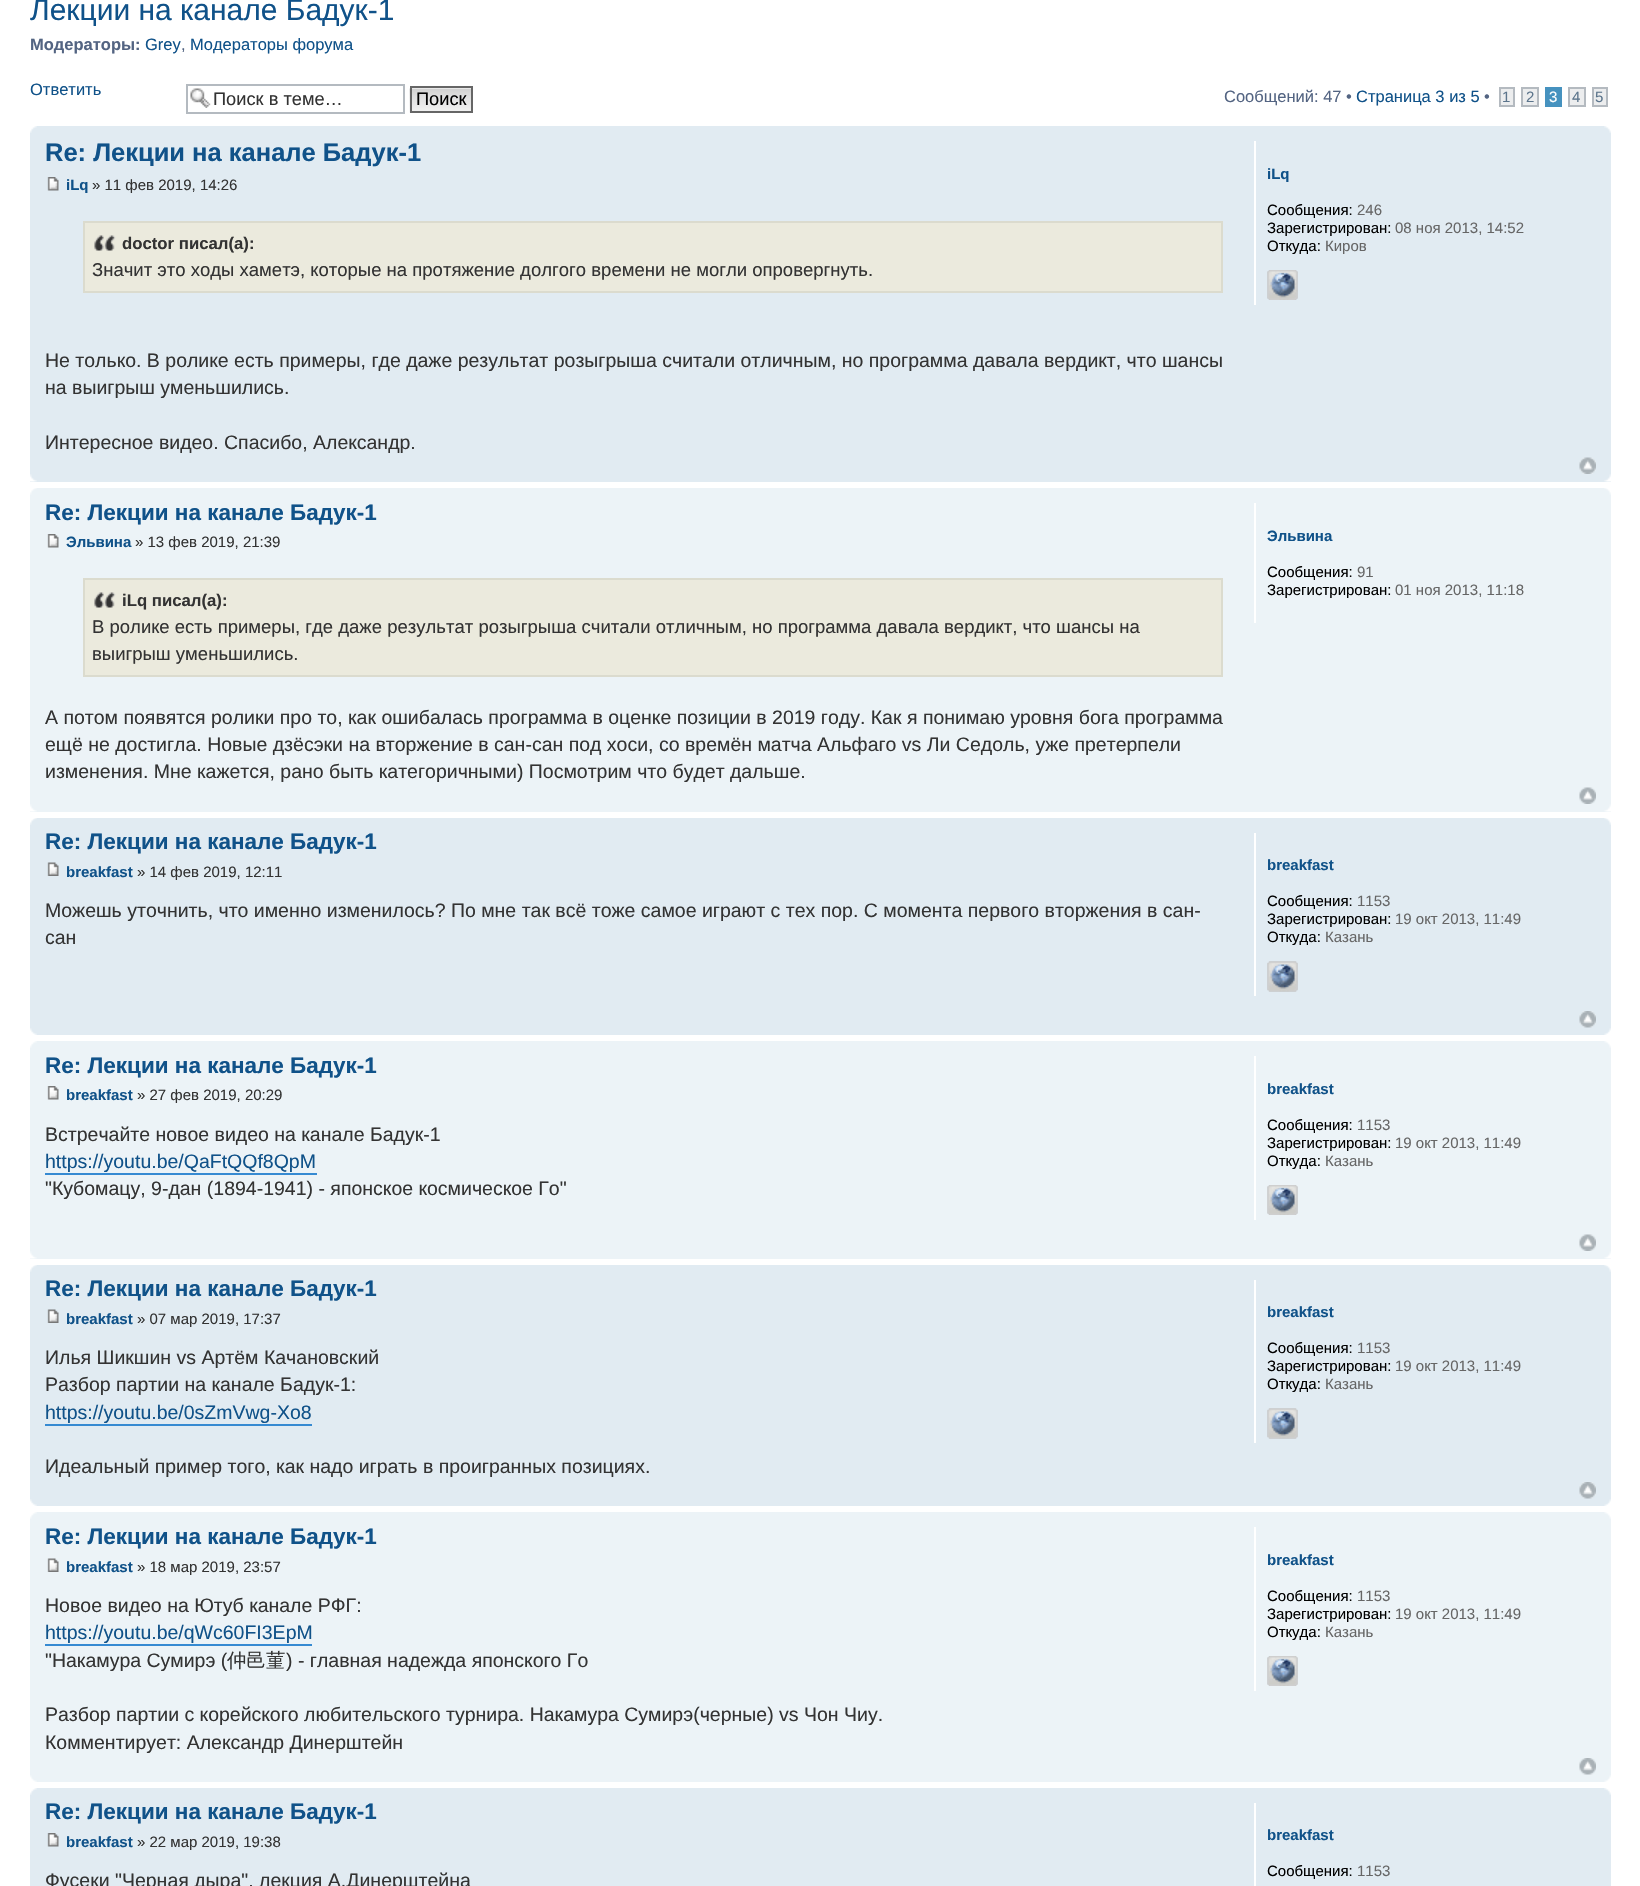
#include "include/core/SkBlurTypes.h"
#include "include/core/SkCanvas.h"
#include "include/core/SkData.h"
#include "include/core/SkFont.h"
#include "include/core/SkFontMgr.h"
#include "include/core/SkImage.h"
#include "include/core/SkMaskFilter.h"
#include "include/core/SkPaint.h"
#include "include/core/SkPathBuilder.h"
#include "include/core/SkTextBlob.h"
#include "include/effects/SkDashPathEffect.h"
#include "include/effects/SkGradientShader.h"
#include "include/utils/SkParsePath.h"

extern sk_sp<SkFontMgr> fontMgr;

void draw(SkCanvas* canvas) {
    SkPaint p;
    p.setAntiAlias(true);
    auto font = [&](const char* family, int weight, float size, bool italic = false) {
        SkFontStyle style(weight, SkFontStyle::kNormal_Width,
            italic ? SkFontStyle::kItalic_Slant : SkFontStyle::kUpright_Slant);
        SkFont result(fontMgr->matchFamilyStyle(family, style), size);
        result.setSubpixel(true);
        return result;
    };
    auto drawPhoto = [&](const char* path, float l, float t, float r, float b) {
        auto image = SkImages::DeferredFromEncodedData(SkData::MakeFromFileName(path));
        canvas->drawImageRect(image, SkRect::MakeLTRB(l, t, r, b), SkSamplingOptions());
    };
    canvas->clear(0xFFFFFFFF);
    auto font1 = font("Liberation Sans", 400, 30);
    p.setColor(0xFF105289);
    canvas->drawString("Лекции на канале Бадук-1", 30, 20, font1, p);
    auto font2 = font("Liberation Sans", 700, 16.5f);
    p.setColor(0xFF536482);
    canvas->drawString("Модераторы:", 30, 50, font2, p);
    auto font3 = font("Liberation Sans", 400, 16.5f);
    p.setColor(0xFF105289);
    canvas->drawString("Grey", 145, 50, font3, p);
    p.setColor(0xFF536482);
    canvas->drawString(",", 181, 50, font3, p);
    p.setColor(0xFF105289);
    canvas->drawString("Модераторы форума", 190, 50, font3, p);
    canvas->drawString("Ответить", 30, 95, font3, p);
    drawPhoto("media/1.png", 190, 88, 211, 108);
    p.setStyle(SkPaint::kStroke_Style);
    p.setStrokeWidth(2);
    p.setColor(0xFFB4BAC0);
    canvas->drawRect(SkRect::MakeLTRB(187, 85, 404, 113), p);
    auto font4 = font("Liberation Sans", 400, 18.25f);
    p.setStyle(SkPaint::kFill_Style);
    p.setColor(0xFF333333);
    canvas->drawString("Поиск в теме…", 213, 105, font4, p);
    drawPhoto("media/2.png", 409, 87, 471, 113);
    p.setStyle(SkPaint::kStroke_Style);
    p.setColor(0xFF666666);
    canvas->drawRect(SkRect::MakeLTRB(411, 87, 472, 112), p);
    p.setStyle(SkPaint::kFill_Style);
    p.setColor(0xFF000000);
    canvas->drawString("Поиск", 416, 105, font4, p);
    p.setColor(0xFF536482);
    canvas->drawString("Сообщений: 47 •", 1224, 102, font3, p);
    p.setColor(0xFF105289);
    canvas->drawString("Страница 3 из 5", 1356, 102, font3, p);
    p.setColor(0xFF536482);
    canvas->drawString("•", 1484, 102, font3, p);
    p.setColor(0xFFECEDEE);
    canvas->drawRect(SkRect::MakeLTRB(1500, 88, 1514, 106), p);
    p.setStyle(SkPaint::kStroke_Style);
    p.setColor(0xFFB4BAC0);
    canvas->drawRect(SkRect::MakeLTRB(1500, 88, 1514, 106), p);
    auto font5 = font("Liberation Sans", 400, 15);
    p.setStyle(SkPaint::kFill_Style);
    p.setColor(0xFF5C758C);
    canvas->drawString("1", 1502, 102, font5, p);
    p.setColor(0xFFECEDEE);
    canvas->drawRect(SkRect::MakeLTRB(1522, 88, 1538, 106), p);
    p.setStyle(SkPaint::kStroke_Style);
    p.setColor(0xFFB4BAC0);
    canvas->drawRect(SkRect::MakeLTRB(1522, 88, 1538, 106), p);
    p.setStyle(SkPaint::kFill_Style);
    p.setColor(0xFF5C758C);
    canvas->drawString("2", 1526, 102, font5, p);
    p.setColor(0xFF4692BF);
    canvas->drawRect(SkRect::MakeLTRB(1545, 87, 1562, 107), p);
    p.setColor(0xFFFFFFFF);
    canvas->drawString("3", 1549, 102, font5, p);
    p.setColor(0xFFECEDEE);
    canvas->drawRect(SkRect::MakeLTRB(1569, 88, 1585, 106), p);
    p.setStyle(SkPaint::kStroke_Style);
    p.setColor(0xFFB4BAC0);
    canvas->drawRect(SkRect::MakeLTRB(1569, 88, 1585, 106), p);
    p.setStyle(SkPaint::kFill_Style);
    p.setColor(0xFF5C758C);
    canvas->drawString("4", 1572, 102, font5, p);
    p.setColor(0xFFECEDEE);
    canvas->drawRect(SkRect::MakeLTRB(1593, 88, 1607, 106), p);
    p.setStyle(SkPaint::kStroke_Style);
    p.setColor(0xFFB4BAC0);
    canvas->drawRect(SkRect::MakeLTRB(1593, 88, 1607, 106), p);
    p.setStyle(SkPaint::kFill_Style);
    p.setColor(0xFF5C758C);
    canvas->drawString("5", 1595, 102, font5, p);
    p.setColor(0xFFE1EBF2);
    canvas->drawRect(SkRect::MakeLTRB(30, 126, 1611, 482), p);
    drawPhoto("media/3.png", 30, 126, 37, 133);
    drawPhoto("media/4.png", 1604, 126, 1611, 133);
    auto font6 = font("Liberation Sans", 700, 25.5f);
    p.setColor(0xFF105289);
    canvas->drawString("Re: Лекции на канале Бадук-1", 45, 161, font6, p);
    drawPhoto("media/5.png", 47, 177, 59, 191);
    auto font7 = font("Liberation Sans", 700, 15);
    canvas->drawString("iLq", 66, 190, font7, p);
    p.setColor(0xFF333333);
    canvas->drawString("» 11 фев 2019, 14:26", 92, 190, font5, p);
    p.setColor(0xFFEBEADD);
    canvas->drawRect(SkRect::MakeLTRB(85, 223, 1221, 291), p);
    drawPhoto("media/6.png", 94, 235, 116, 251);
    p.setStyle(SkPaint::kStroke_Style);
    p.setColor(0xFFDBDBCE);
    canvas->drawRect(SkRect::MakeLTRB(84, 222, 1222, 292), p);
    auto font8 = font("Liberation Sans", 700, 16.75f);
    p.setStyle(SkPaint::kFill_Style);
    p.setColor(0xFF333333);
    canvas->drawString("doctor писал(а):", 122, 249, font8, p);
    auto font9 = font("Liberation Sans", 400, 18.52f);
    canvas->drawString("Значит это ходы хаметэ, которые на протяжение долгого времени не могли опровергнуть.", 92, 276, font9, p);
    auto font10 = font("Liberation Sans", 400, 19.5f);
    {
        const struct { const char* s; float x, y; } items[] = {
            {"Не только. В ролике есть примеры, где даже результат розыгрыша считали отличным, но программа давала вердикт, что шансы", 45, 367},
            {"на выигрыш уменьшились.", 45, 394},
            {"Интересное видео. Спасибо, Александр.", 45, 449},
        };
        for (auto [s, x, y] : items) {
            canvas->drawString(s, x, y, font10, p);
        }
    }
    p.setColor(0xFFFFFFFF);
    canvas->drawRect(SkRect::MakeLTRB(1254, 141, 1256, 305), p);
    p.setColor(0xFF105289);
    canvas->drawString("iLq", 1267, 179, font7, p);
    p.setColor(0xFF000000);
    canvas->drawString("Сообщения:", 1267, 215, font5, p);
    p.setColor(0xFF666666);
    canvas->drawString("246", 1357, 215, font5, p);
    p.setColor(0xFF000000);
    canvas->drawString("Зарегистрирован:", 1267, 233, font5, p);
    p.setColor(0xFF666666);
    canvas->drawString("08 ноя 2013, 14:52", 1395, 233, font5, p);
    p.setColor(0xFF000000);
    canvas->drawString("Откуда:", 1267, 251, font5, p);
    p.setColor(0xFF666666);
    canvas->drawString("Киров", 1325, 251, font5, p);
    drawPhoto("media/7.png", 1267, 270, 1298, 300);
    drawPhoto("media/8.png", 1267, 270, 1298, 300);
    drawPhoto("media/9.png", 1579, 457, 1596, 474);
    drawPhoto("media/10.png", 30, 474, 37, 482);
    drawPhoto("media/11.png", 1604, 474, 1611, 482);
    p.setColor(0xFFECF3F7);
    canvas->drawRect(SkRect::MakeLTRB(30, 488, 1611, 812), p);
    drawPhoto("media/12.png", 30, 488, 37, 495);
    drawPhoto("media/13.png", 1604, 488, 1611, 495);
    auto font11 = font("Liberation Sans", 700, 22.5f);
    p.setColor(0xFF105289);
    canvas->drawString("Re: Лекции на канале Бадук-1", 45, 520, font11, p);
    drawPhoto("media/14.png", 47, 534, 59, 548);
    canvas->drawString("Эльвина", 66, 547, font7, p);
    p.setColor(0xFF333333);
    canvas->drawString("» 13 фев 2019, 21:39", 135, 547, font5, p);
    p.setColor(0xFFEBEADD);
    canvas->drawRect(SkRect::MakeLTRB(85, 580, 1221, 675), p);
    drawPhoto("media/6.png", 94, 592, 116, 608);
    p.setStyle(SkPaint::kStroke_Style);
    p.setColor(0xFFDBDBCE);
    canvas->drawRect(SkRect::MakeLTRB(84, 579, 1222, 676), p);
    p.setStyle(SkPaint::kFill_Style);
    p.setColor(0xFF333333);
    canvas->drawString("iLq писал(а):", 122, 606, font8, p);
    canvas->drawString("В ролике есть примеры, где даже результат розыгрыша считали отличным, но программа давала вердикт, что шансы на", 92, 633, font9, p);
    canvas->drawString("выигрыш уменьшились.", 92, 660, font9, p);
    {
        const struct { const char* s; float x, y; } items[] = {
            {"А потом появятся ролики про то, как ошибалась программа в оценке позиции в 2019 году. Как я понимаю уровня бога программа", 45, 724},
            {"ещё не достигла. Новые дзёсэки на вторжение в сан-сан под хоси, со времён матча Альфаго vs Ли Седоль, уже претерпели", 45, 751},
            {"изменения. Мне кажется, рано быть категоричными) Посмотрим что будет дальше.", 45, 778},
        };
        for (auto [s, x, y] : items) {
            canvas->drawString(s, x, y, font10, p);
        }
    }
    p.setColor(0xFFFFFFFF);
    canvas->drawRect(SkRect::MakeLTRB(1254, 503, 1256, 623), p);
    p.setColor(0xFF105289);
    canvas->drawString("Эльвина", 1267, 541, font7, p);
    p.setColor(0xFF000000);
    canvas->drawString("Сообщения:", 1267, 577, font5, p);
    p.setColor(0xFF666666);
    canvas->drawString("91", 1357, 577, font5, p);
    p.setColor(0xFF000000);
    canvas->drawString("Зарегистрирован:", 1267, 595, font5, p);
    p.setColor(0xFF666666);
    canvas->drawString("01 ноя 2013, 11:18", 1395, 595, font5, p);
    drawPhoto("media/15.png", 1579, 787, 1596, 804);
    drawPhoto("media/16.png", 30, 804, 37, 812);
    drawPhoto("media/17.png", 1604, 804, 1611, 812);
    p.setColor(0xFFE1EBF2);
    canvas->drawRect(SkRect::MakeLTRB(30, 818, 1611, 1035), p);
    drawPhoto("media/18.png", 30, 818, 37, 825);
    drawPhoto("media/19.png", 1604, 818, 1611, 825);
    p.setColor(0xFF105289);
    canvas->drawString("Re: Лекции на канале Бадук-1", 45, 849, font11, p);
    drawPhoto("media/20.png", 47, 862, 59, 876);
    canvas->drawString("breakfast", 66, 877, font7, p);
    p.setColor(0xFF333333);
    canvas->drawString("» 14 фев 2019, 12:11", 137, 877, font5, p);
    canvas->drawString("Можешь уточнить, что именно изменилось? По мне так всё тоже самое играют с тех пор. С момента первого вторжения в сан-", 45, 917, font10, p);
    canvas->drawString("сан", 45, 944, font10, p);
    p.setColor(0xFFFFFFFF);
    canvas->drawRect(SkRect::MakeLTRB(1254, 833, 1256, 996), p);
    p.setColor(0xFF105289);
    canvas->drawString("breakfast", 1267, 870, font7, p);
    p.setColor(0xFF000000);
    canvas->drawString("Сообщения:", 1267, 906, font5, p);
    p.setColor(0xFF666666);
    canvas->drawString("1153", 1357, 906, font5, p);
    p.setColor(0xFF000000);
    canvas->drawString("Зарегистрирован:", 1267, 924, font5, p);
    p.setColor(0xFF666666);
    canvas->drawString("19 окт 2013, 11:49", 1395, 924, font5, p);
    p.setColor(0xFF000000);
    canvas->drawString("Откуда:", 1267, 942, font5, p);
    p.setColor(0xFF666666);
    canvas->drawString("Казань", 1325, 942, font5, p);
    drawPhoto("media/21.png", 1267, 961, 1298, 992);
    drawPhoto("media/22.png", 1267, 961, 1298, 992);
    drawPhoto("media/23.png", 1579, 1011, 1596, 1028);
    drawPhoto("media/24.png", 30, 1028, 37, 1035);
    drawPhoto("media/25.png", 1604, 1028, 1611, 1035);
    p.setColor(0xFFECF3F7);
    canvas->drawRect(SkRect::MakeLTRB(30, 1041, 1611, 1259), p);
    drawPhoto("media/26.png", 30, 1041, 37, 1048);
    drawPhoto("media/27.png", 1604, 1041, 1611, 1048);
    p.setColor(0xFF105289);
    canvas->drawString("Re: Лекции на канале Бадук-1", 45, 1073, font11, p);
    drawPhoto("media/14.png", 47, 1086, 59, 1100);
    canvas->drawString("breakfast", 66, 1100, font7, p);
    p.setColor(0xFF333333);
    canvas->drawString("» 27 фев 2019, 20:29", 137, 1100, font5, p);
    canvas->drawString("Встречайте новое видео на канале Бадук-1", 45, 1141, font10, p);
    p.setColor(0xFF105289);
    canvas->drawString("https://youtu.be/QaFtQQf8QpM", 45, 1168, font10, p);
    p.setColor(0xFF368AD2);
    canvas->drawRect(SkRect::MakeLTRB(45, 1173, 317, 1175), p);
    p.setColor(0xFF333333);
    canvas->drawString("\"Кубомацу, 9-дан (1894-1941) - японское космическое Го\"", 45, 1195, font10, p);
    p.setColor(0xFFFFFFFF);
    canvas->drawRect(SkRect::MakeLTRB(1254, 1056, 1256, 1220), p);
    p.setColor(0xFF105289);
    canvas->drawString("breakfast", 1267, 1094, font7, p);
    p.setColor(0xFF000000);
    canvas->drawString("Сообщения:", 1267, 1130, font5, p);
    p.setColor(0xFF666666);
    canvas->drawString("1153", 1357, 1130, font5, p);
    p.setColor(0xFF000000);
    canvas->drawString("Зарегистрирован:", 1267, 1148, font5, p);
    p.setColor(0xFF666666);
    canvas->drawString("19 окт 2013, 11:49", 1395, 1148, font5, p);
    p.setColor(0xFF000000);
    canvas->drawString("Откуда:", 1267, 1166, font5, p);
    p.setColor(0xFF666666);
    canvas->drawString("Казань", 1325, 1166, font5, p);
    drawPhoto("media/28.png", 1267, 1185, 1298, 1215);
    drawPhoto("media/29.png", 1267, 1185, 1298, 1215);
    drawPhoto("media/15.png", 1579, 1234, 1596, 1251);
    drawPhoto("media/16.png", 30, 1251, 37, 1259);
    drawPhoto("media/17.png", 1604, 1251, 1611, 1259);
    p.setColor(0xFFE1EBF2);
    canvas->drawRect(SkRect::MakeLTRB(30, 1265, 1611, 1506), p);
    drawPhoto("media/18.png", 30, 1265, 37, 1272);
    drawPhoto("media/19.png", 1604, 1265, 1611, 1272);
    p.setColor(0xFF105289);
    canvas->drawString("Re: Лекции на канале Бадук-1", 45, 1296, font11, p);
    drawPhoto("media/20.png", 47, 1309, 59, 1323);
    canvas->drawString("breakfast", 66, 1324, font7, p);
    p.setColor(0xFF333333);
    canvas->drawString("» 07 мар 2019, 17:37", 137, 1324, font5, p);
    canvas->drawString("Илья Шикшин vs Артём Качановский", 45, 1364, font10, p);
    canvas->drawString("Разбор партии на канале Бадук-1:", 45, 1391, font10, p);
    p.setColor(0xFF105289);
    canvas->drawString("https://youtu.be/0sZmVwg-Xo8", 45, 1419, font10, p);
    p.setColor(0xFF368AD2);
    canvas->drawRect(SkRect::MakeLTRB(45, 1424, 312, 1426), p);
    p.setColor(0xFF333333);
    canvas->drawString("Идеальный пример того, как надо играть в проигранных позициях.", 45, 1473, font10, p);
    p.setColor(0xFFFFFFFF);
    canvas->drawRect(SkRect::MakeLTRB(1254, 1280, 1256, 1443), p);
    p.setColor(0xFF105289);
    canvas->drawString("breakfast", 1267, 1317, font7, p);
    p.setColor(0xFF000000);
    canvas->drawString("Сообщения:", 1267, 1353, font5, p);
    p.setColor(0xFF666666);
    canvas->drawString("1153", 1357, 1353, font5, p);
    p.setColor(0xFF000000);
    canvas->drawString("Зарегистрирован:", 1267, 1371, font5, p);
    p.setColor(0xFF666666);
    canvas->drawString("19 окт 2013, 11:49", 1395, 1371, font5, p);
    p.setColor(0xFF000000);
    canvas->drawString("Откуда:", 1267, 1389, font5, p);
    p.setColor(0xFF666666);
    canvas->drawString("Казань", 1325, 1389, font5, p);
    drawPhoto("media/21.png", 1267, 1408, 1298, 1439);
    drawPhoto("media/22.png", 1267, 1408, 1298, 1439);
    drawPhoto("media/23.png", 1579, 1482, 1596, 1499);
    drawPhoto("media/24.png", 30, 1499, 37, 1506);
    drawPhoto("media/25.png", 1604, 1499, 1611, 1506);
    p.setColor(0xFFECF3F7);
    canvas->drawRect(SkRect::MakeLTRB(30, 1512, 1611, 1782), p);
    drawPhoto("media/26.png", 30, 1512, 37, 1519);
    drawPhoto("media/27.png", 1604, 1512, 1611, 1519);
    p.setColor(0xFF105289);
    canvas->drawString("Re: Лекции на канале Бадук-1", 45, 1544, font11, p);
    drawPhoto("media/30.png", 47, 1558, 59, 1572);
    canvas->drawString("breakfast", 66, 1572, font7, p);
    p.setColor(0xFF333333);
    canvas->drawString("» 18 мар 2019, 23:57", 137, 1572, font5, p);
    canvas->drawString("Новое видео на Ютуб канале РФГ:", 45, 1612, font10, p);
    p.setColor(0xFF105289);
    canvas->drawString("https://youtu.be/qWc60FI3EpM", 45, 1639, font10, p);
    p.setColor(0xFF368AD2);
    canvas->drawRect(SkRect::MakeLTRB(45, 1644, 312, 1646), p);
    p.setColor(0xFF333333);
    canvas->drawString("\"Накамура Сумирэ (", 45, 1667, font10, p);
    auto font12 = font("WenQuanYi Zen Hei", 500, 19.5f);
    canvas->drawString("仲邑菫", 227, 1667, font12, p);
    {
        const struct { const char* s; float x, y; } items[] = {
            {") - главная надежда японского Го", 286, 1667},
            {"Разбор партии с корейского любительского турнира. Накамура Сумирэ(черные) vs Чон Чиу.", 45, 1721},
            {"Комментирует: Александр Динерштейн", 45, 1749},
        };
        for (auto [s, x, y] : items) {
            canvas->drawString(s, x, y, font10, p);
        }
    }
    p.setColor(0xFFFFFFFF);
    canvas->drawRect(SkRect::MakeLTRB(1254, 1527, 1256, 1691), p);
    p.setColor(0xFF105289);
    canvas->drawString("breakfast", 1267, 1565, font7, p);
    p.setColor(0xFF000000);
    canvas->drawString("Сообщения:", 1267, 1601, font5, p);
    p.setColor(0xFF666666);
    canvas->drawString("1153", 1357, 1601, font5, p);
    p.setColor(0xFF000000);
    canvas->drawString("Зарегистрирован:", 1267, 1619, font5, p);
    p.setColor(0xFF666666);
    canvas->drawString("19 окт 2013, 11:49", 1395, 1619, font5, p);
    p.setColor(0xFF000000);
    canvas->drawString("Откуда:", 1267, 1637, font5, p);
    p.setColor(0xFF666666);
    canvas->drawString("Казань", 1325, 1637, font5, p);
    drawPhoto("media/28.png", 1267, 1656, 1298, 1686);
    drawPhoto("media/29.png", 1267, 1656, 1298, 1686);
    drawPhoto("media/31.png", 1579, 1758, 1596, 1775);
    drawPhoto("media/32.png", 30, 1775, 37, 1782);
    drawPhoto("media/33.png", 1604, 1775, 1611, 1782);
    p.setColor(0xFFE1EBF2);
    canvas->drawRect(SkRect::MakeLTRB(30, 1788, 1611, 1886), p);
    drawPhoto("media/3.png", 30, 1788, 37, 1795);
    drawPhoto("media/4.png", 1604, 1788, 1611, 1795);
    p.setColor(0xFF105289);
    canvas->drawString("Re: Лекции на канале Бадук-1", 45, 1819, font11, p);
    drawPhoto("media/5.png", 47, 1833, 59, 1847);
    canvas->drawString("breakfast", 66, 1847, font7, p);
    p.setColor(0xFF333333);
    canvas->drawString("» 22 мар 2019, 19:38", 137, 1847, font5, p);
    canvas->drawString("Фусеки \"Черная дыра\", лекция А.Динерштейна", 45, 1887, font10, p);
    p.setColor(0xFFFFFFFF);
    canvas->drawRect(SkRect::MakeLTRB(1254, 1803, 1256, 1886), p);
    p.setColor(0xFF105289);
    canvas->drawString("breakfast", 1267, 1840, font7, p);
    p.setColor(0xFF000000);
    canvas->drawString("Сообщения:", 1267, 1876, font5, p);
    p.setColor(0xFF666666);
    canvas->drawString("1153", 1357, 1876, font5, p);
}
